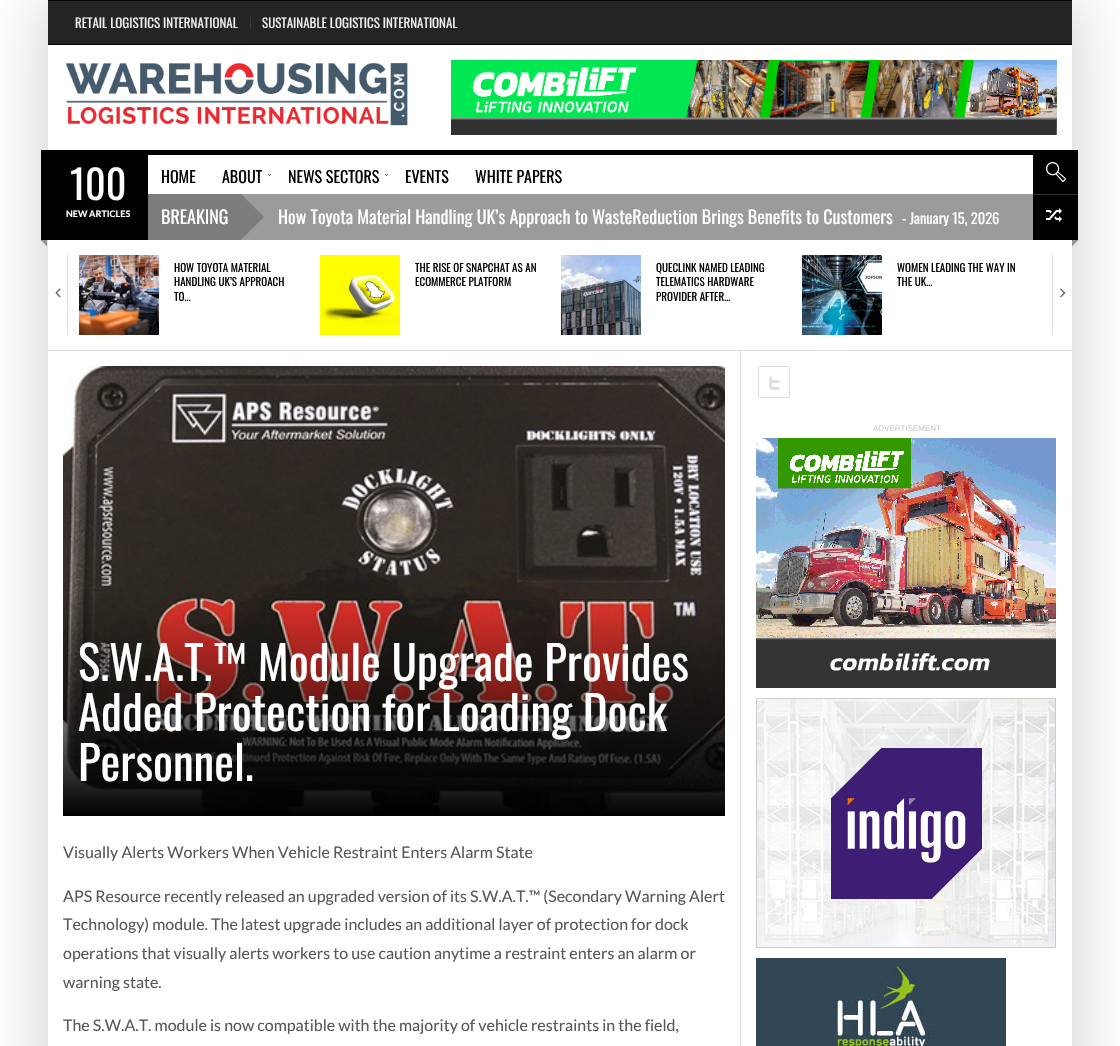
#include "include/core/SkBlurTypes.h"
#include "include/core/SkCanvas.h"
#include "include/core/SkData.h"
#include "include/core/SkFont.h"
#include "include/core/SkFontMgr.h"
#include "include/core/SkImage.h"
#include "include/core/SkMaskFilter.h"
#include "include/core/SkPaint.h"
#include "include/core/SkPathBuilder.h"
#include "include/core/SkTextBlob.h"
#include "include/effects/SkDashPathEffect.h"
#include "include/effects/SkGradientShader.h"
#include "include/utils/SkParsePath.h"

extern sk_sp<SkFontMgr> fontMgr;

void draw(SkCanvas* canvas) {
    SkPaint p;
    p.setAntiAlias(true);
    auto font = [&](const char* family, int weight, float size, bool italic = false) {
        SkFontStyle style(weight, SkFontStyle::kNormal_Width,
            italic ? SkFontStyle::kItalic_Slant : SkFontStyle::kUpright_Slant);
        SkFont result(fontMgr->matchFamilyStyle(family, style), size);
        result.setSubpixel(true);
        return result;
    };
    auto drawPhoto = [&](const char* path, float l, float t, float r, float b) {
        auto image = SkImages::DeferredFromEncodedData(SkData::MakeFromFileName(path));
        canvas->drawImageRect(image, SkRect::MakeLTRB(l, t, r, b), SkSamplingOptions());
    };
    canvas->clear(0xFFFFFFFF);
    canvas->save();
    canvas->clipPath(SkPathBuilder(SkPathFillType::kEvenOdd).moveTo(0, 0).lineTo(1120, 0).lineTo(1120, 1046).lineTo(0, 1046).close().moveTo(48, 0).lineTo(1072, 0).lineTo(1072, 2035).lineTo(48, 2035).close().detach(), true);
    p.setColor(0x33000000);
    p.setMaskFilter(SkMaskFilter::MakeBlur(kNormal_SkBlurStyle, 30));
    canvas->drawRect(SkRect::MakeLTRB(48, 0, 1072, 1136), p);
    p.setMaskFilter(nullptr);
    canvas->restore();
    {
        const struct { float l, t, r, b; SkColor color; } items[] = {
            {48, 1, 1072, 44, 0xFF242424},
            {48, 0, 1072, 1, 0xFF070707},
            {48, 44, 1072, 45, 0xFF070707},
        };
        for (auto [l, t, r, b, color] : items) {
            p.setColor(color);
            canvas->drawRect(SkRect::MakeLTRB(l, t, r, b), p);
        }
    }
    auto font1 = font("Oswald", 400, 13);
    p.setColor(0xFFEEEEEE);
    canvas->drawString("RETAIL LOGISTICS INTERNATIONAL", 75, 28, font1, p);
    drawPhoto("media/1.png", 250, 16, 251, 29);
    canvas->drawString("SUSTAINABLE LOGISTICS INTERNATIONAL", 262, 28, font1, p);
    drawPhoto("media/2.png", 65, 63, 408, 126);
    drawPhoto("media/3.png", 451, 60, 1057, 135);
    p.setColor(0xFF000000);
    canvas->drawRect(SkRect::MakeLTRB(41, 150, 148, 240), p);
    auto font2 = font("Oswald", 400, 40);
    p.setColor(0xFFFFFFFF);
    canvas->drawString("100", 70, 200, font2, p);
    auto font3 = font("Lato", 700, 9);
    canvas->drawString("NEW ARTICLES", 66, 217, font3, p);
    drawPhoto("media/4.png", 41, 240, 47, 246);
    p.setColor(0xFF000000);
    canvas->drawRect(SkRect::MakeLTRB(148, 150, 1034, 155), p);
    auto font4 = font("Oswald", 400, 16);
    canvas->drawString("HOME", 161, 183, font4, p);
    canvas->drawString("ABOUT", 222, 183, font4, p);
    drawPhoto("media/5.png", 268, 174, 271, 176);
    canvas->drawString("NEWS SECTORS", 288, 183, font4, p);
    drawPhoto("media/5.png", 385, 174, 388, 176);
    canvas->drawString("EVENTS", 405, 183, font4, p);
    canvas->drawString("WHITE PAPERS", 475, 183, font4, p);
    canvas->drawRect(SkRect::MakeLTRB(1033, 150, 1078, 240), p);
    drawPhoto("media/6.png", 1046, 162, 1066, 182);
    p.setColor(0xFF333333);
    canvas->drawRect(SkRect::MakeLTRB(1033, 194, 1078, 195), p);
    drawPhoto("media/7.png", 1046, 208, 1062, 222);
    drawPhoto("media/8.png", 1072, 240, 1078, 246);
    p.setColor(0xFF9B9B9B);
    canvas->drawRect(SkRect::MakeLTRB(241, 194, 1033, 240), p);
    p.setColor(0xFF7C7C7C);
    canvas->drawRect(SkRect::MakeLTRB(148, 194, 241, 240), p);
    auto font5 = font("Oswald", 400, 18);
    p.setColor(0xFFFFFFFF);
    canvas->drawString("BREAKING", 161, 224, font5, p);
    p.setColor(0xFF7C7C7C);
    canvas->drawPath(SkPathBuilder().moveTo(241, 240).lineTo(241, 194).lineTo(264, 217).close().detach(), p);
    p.setColor(0xFFFFFFFF);
    canvas->drawString("How Toyota Material Handling UK’s Approach to WasteReduction Brings Benefits to Customers", 278, 224, font5, p);
    auto font6 = font("Oswald", 400, 14.5f);
    canvas->drawString("- January 15, 2026", 902, 224, font6, p);
    p.setColor(0xFFDFDFDD);
    canvas->drawRect(SkRect::MakeLTRB(48, 350, 1072, 351), p);
    canvas->drawRect(SkRect::MakeLTRB(67, 255, 68, 335), p);
    drawPhoto("media/9.png", 55, 288, 61, 298);
    drawPhoto("media/10.png", 79, 255, 159, 335);
    auto font7 = font("Oswald", 400, 11);
    p.setColor(0xFF000000);
    {
        const struct { const char* s; float x, y; } items[] = {
            {"HOW TOYOTA MATERIAL", 174, 272},
            {"HANDLING UK’S APPROACH", 174, 286},
            {"TO…", 174, 301},
        };
        for (auto [s, x, y] : items) {
            canvas->drawString(s, x, y, font7, p);
        }
    }
    drawPhoto("media/11.png", 320, 255, 400, 335);
    canvas->drawString("THE RISE OF SNAPCHAT AS AN", 415, 272, font7, p);
    canvas->drawString("ECOMMERCE PLATFORM", 415, 286, font7, p);
    drawPhoto("media/12.png", 561, 255, 641, 335);
    {
        const struct { const char* s; float x, y; } items[] = {
            {"QUECLINK NAMED LEADING", 656, 272},
            {"TELEMATICS HARDWARE", 656, 286},
            {"PROVIDER AFTER…", 656, 301},
        };
        for (auto [s, x, y] : items) {
            canvas->drawString(s, x, y, font7, p);
        }
    }
    drawPhoto("media/13.png", 802, 255, 882, 335);
    canvas->drawString("WOMEN LEADING THE WAY IN", 897, 272, font7, p);
    canvas->drawString("THE UK…", 897, 286, font7, p);
    p.setColor(0xFFDFDFDD);
    canvas->drawRect(SkRect::MakeLTRB(1052, 255, 1053, 335), p);
    drawPhoto("media/14.png", 1060, 288, 1066, 298);
    p.setStyle(SkPaint::kStroke_Style);
    p.setStrokeWidth(1);
    canvas->drawRoundRect(SkRect::MakeLTRB(758.5f, 366.5f, 789.5f, 397.5f), 1.5f, 1.5f, p);
    drawPhoto("media/15.png", 769, 376, 780, 391);
    auto font8 = font("Liberation Sans", 400, 8);
    p.setStyle(SkPaint::kFill_Style);
    p.setColor(0xFFCCCCCC);
    canvas->drawString("ADVERTISEMENT", 873, 431, font8, p);
    drawPhoto("media/16.png", 756, 438, 1056, 688);
    drawPhoto("media/17.png", 756, 698, 1056, 948);
    drawPhoto("media/18.png", 756, 958, 1006, 1046);
    p.setColor(0xFFDFDFDD);
    canvas->drawRect(SkRect::MakeLTRB(740, 351, 741, 1046), p);
    drawPhoto("media/19.png", 63, 366, 725, 816);
    auto font9 = font("Oswald", 400, 47);
    p.setColor(0xFFFFFFFF);
    {
        const struct { const char* s; float x, y; } items[] = {
            {"S.W.A.T.™ Module Upgrade Provides", 78, 681},
            {"Added Protection for Loading Dock", 78, 731},
            {"Personnel.", 78, 781},
        };
        for (auto [s, x, y] : items) {
            canvas->drawString(s, x, y, font9, p);
        }
    }
    auto font10 = font("Lato", 400, 16);
    p.setColor(0xFF595858);
    {
        const struct { const char* s; float x, y; } items[] = {
            {"Visually Alerts Workers When Vehicle Restraint Enters Alarm State", 63, 858},
            {"APS Resource recently released an upgraded version of its S.W.A.T.™ (Secondary Warning Alert", 63, 902},
            {"Technology) module. The latest upgrade includes an additional layer of protection for dock", 63, 930},
            {"operations that visually alerts workers to use caution anytime a restraint enters an alarm or", 63, 959},
            {"warning state.", 63, 988},
            {"The S.W.A.T. module is now compatible with the majority of vehicle restraints in the field,", 63, 1031},
        };
        for (auto [s, x, y] : items) {
            canvas->drawString(s, x, y, font10, p);
        }
    }
}
